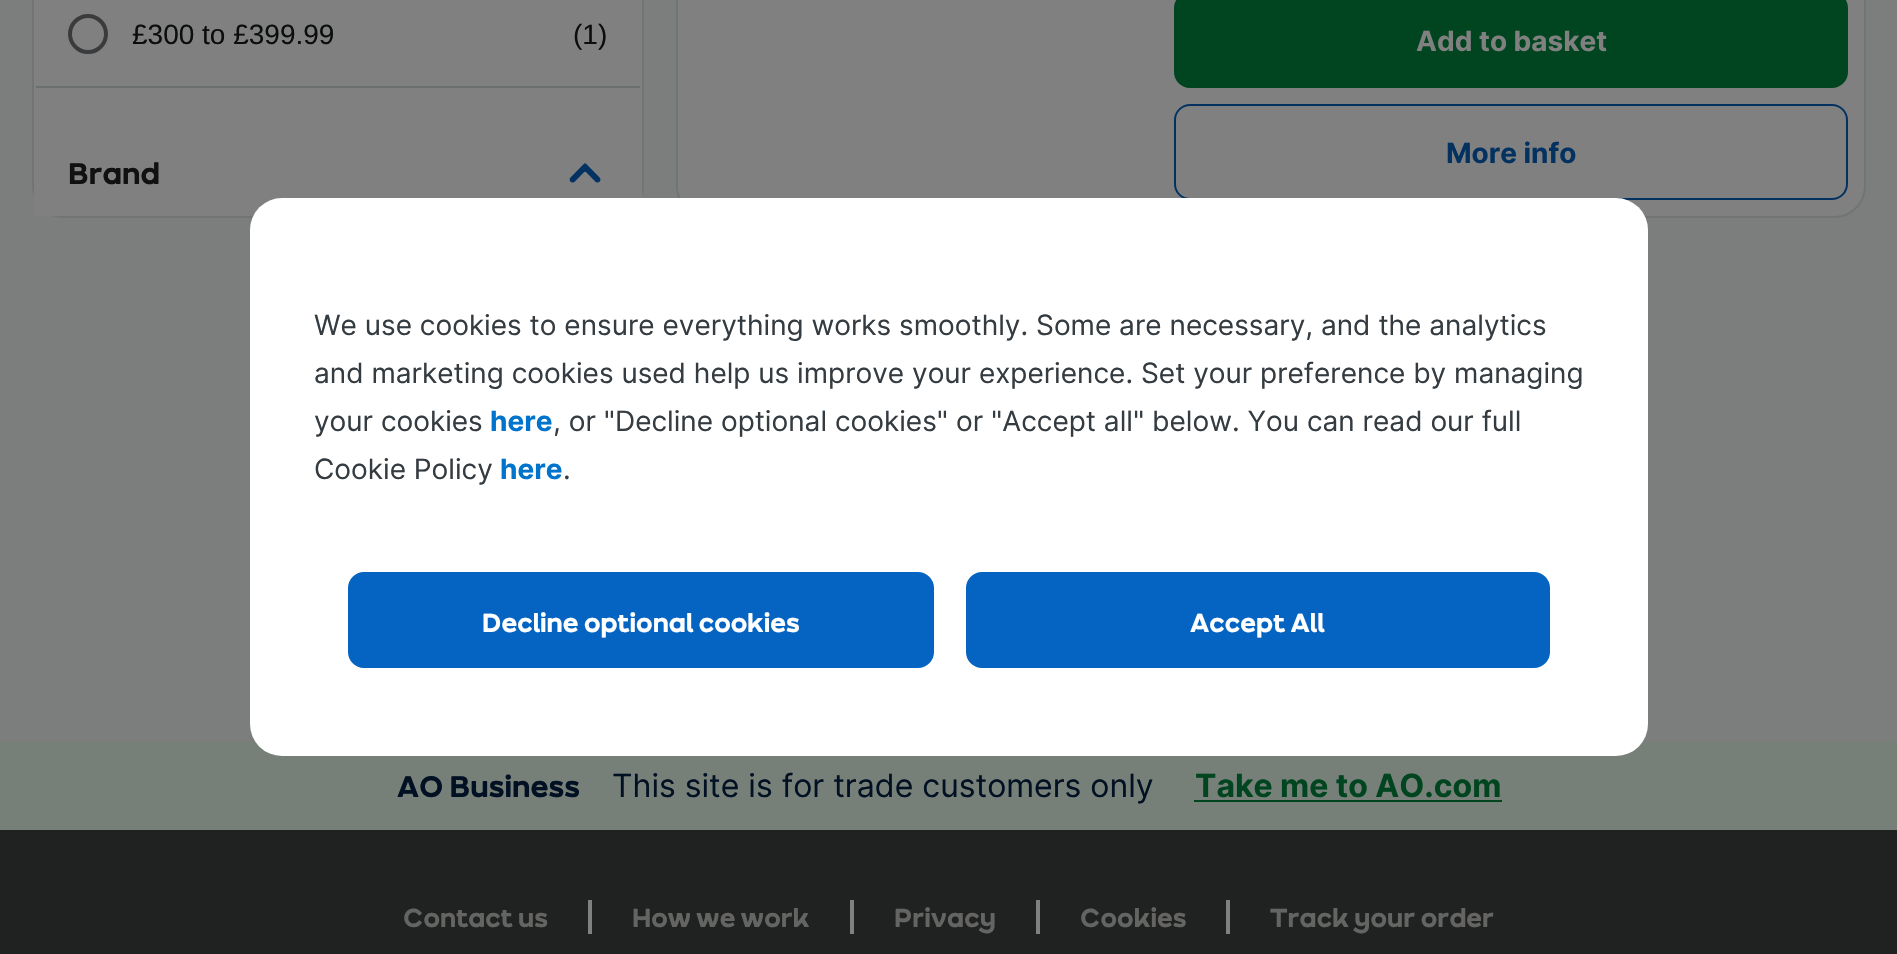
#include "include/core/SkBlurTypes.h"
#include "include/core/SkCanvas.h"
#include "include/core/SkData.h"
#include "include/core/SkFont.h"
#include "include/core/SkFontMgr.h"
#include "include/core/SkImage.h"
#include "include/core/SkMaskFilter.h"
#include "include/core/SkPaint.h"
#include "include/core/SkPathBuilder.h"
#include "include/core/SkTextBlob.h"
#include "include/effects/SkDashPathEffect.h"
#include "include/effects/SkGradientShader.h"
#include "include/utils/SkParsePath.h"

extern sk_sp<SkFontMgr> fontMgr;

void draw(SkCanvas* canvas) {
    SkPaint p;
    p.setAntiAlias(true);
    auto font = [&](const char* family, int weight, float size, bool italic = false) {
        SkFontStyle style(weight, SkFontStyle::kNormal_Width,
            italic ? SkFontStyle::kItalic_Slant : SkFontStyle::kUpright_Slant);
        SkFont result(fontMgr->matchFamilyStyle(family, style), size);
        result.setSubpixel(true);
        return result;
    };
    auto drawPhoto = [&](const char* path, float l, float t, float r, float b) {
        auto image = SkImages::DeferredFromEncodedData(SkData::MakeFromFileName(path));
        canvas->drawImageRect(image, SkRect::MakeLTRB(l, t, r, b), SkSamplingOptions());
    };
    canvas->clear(0xFF768078);
    p.setColor(0xFF7C7D7D);
    canvas->drawRect(SkRect::MakeLTRB(0, 0, 1897, 742), p);
    p.setColor(0xFF808080);
    canvas->drawRoundRect(SkRect::MakeLTRB(33, -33, 643, 217), 31, 31, p);
    p.setStyle(SkPaint::kStroke_Style);
    p.setStrokeWidth(2);
    p.setColor(0xFF717474);
    canvas->drawRoundRect(SkRect::MakeLTRB(33, -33, 643, 217), 31, 31, p);
    p.setStrokeWidth(4);
    p.setColor(0xFF393B3C);
    canvas->drawCircle(88, 34, 18, p);
    auto font1 = font("Liberation Sans", 400, 28);
    p.setStyle(SkPaint::kFill_Style);
    p.setColor(0xFF0B0D0E);
    canvas->drawString("£300 to £399.99", 132, 44, font1, p);
    canvas->drawString("(1)", 573, 44, font1, p);
    p.setColor(0xFF6B6F70);
    canvas->drawRect(SkRect::MakeLTRB(36, 86, 640, 88), p);
    p.setColor(0xFF808080);
    canvas->drawRect(SkRect::MakeLTRB(34, 189, 642, 216), p);
    auto font2 = font("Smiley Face", 700, 32);
    p.setColor(0xFF111111);
    canvas->drawString("Brand", 68, 184, font2, p);
    drawPhoto("media/1.png", 569, 163, 601, 183);
    p.setColor(0xFF808080);
    canvas->drawRoundRect(SkRect::MakeLTRB(677, -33, 1865, 217), 31, 31, p);
    p.setStyle(SkPaint::kStroke_Style);
    p.setStrokeWidth(2);
    p.setColor(0xFF717474);
    canvas->drawRoundRect(SkRect::MakeLTRB(677, -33, 1865, 217), 31, 31, p);
    p.setStyle(SkPaint::kFill_Style);
    p.setColor(0xFF00451F);
    canvas->drawRoundRect(SkRect::MakeLTRB(1175, -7, 1847, 87), 15, 15, p);
    p.setStyle(SkPaint::kStroke_Style);
    canvas->drawRoundRect(SkRect::MakeLTRB(1175, -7, 1847, 87), 15, 15, p);
    auto font3 = font("Inter", 700, 28);
    p.setStyle(SkPaint::kFill_Style);
    p.setColor(0xFF808080);
    canvas->drawString("Add to basket", 1416, 51, font3, p);
    p.setStyle(SkPaint::kStroke_Style);
    p.setColor(0xFF033261);
    canvas->drawRoundRect(SkRect::MakeLTRB(1175, 105, 1847, 199), 15, 15, p);
    p.setStyle(SkPaint::kFill_Style);
    canvas->drawString("More info", 1446, 163, font3, p);
    p.setColor(0xFFFFFFFF);
    canvas->drawRoundRect(SkRect::MakeLTRB(250, 198, 1648, 756), 32, 32, p);
    auto font4 = font("Inter", 400, 28);
    p.setColor(0xFF353C41);
    {
        const struct { const char* s; float x, y; } items[] = {
            {"We use cookies to ensure everything works smoothly. Some are necessary, and the analytics", 314, 335},
            {"and marketing cookies used help us improve your experience. Set your preference by managing", 314, 383},
            {"your cookies", 314, 431},
        };
        for (auto [s, x, y] : items) {
            canvas->drawString(s, x, y, font4, p);
        }
    }
    p.setColor(0xFF0074CC);
    canvas->drawString("here", 490, 431, font3, p);
    p.setColor(0xFF353C41);
    canvas->drawString(", or \"Decline optional cookies\" or \"Accept all\" below. You can read our full", 553, 431, font4, p);
    canvas->drawString("Cookie Policy", 314, 479, font4, p);
    p.setColor(0xFF0074CC);
    canvas->drawString("here", 500, 479, font3, p);
    p.setColor(0xFF353C41);
    canvas->drawString(".", 563, 479, font4, p);
    p.setColor(0xFF0564C2);
    canvas->drawRoundRect(SkRect::MakeLTRB(349, 573, 933, 667), 15, 15, p);
    p.setStyle(SkPaint::kStroke_Style);
    canvas->drawRoundRect(SkRect::MakeLTRB(349, 573, 933, 667), 15, 15, p);
    auto font5 = font("Smiley Face", 700, 28);
    p.setStyle(SkPaint::kFill_Style);
    p.setColor(0xFFFFFFFF);
    canvas->drawString("Decline optional cookies", 482, 632, font5, p);
    p.setColor(0xFF0564C2);
    canvas->drawRoundRect(SkRect::MakeLTRB(967, 573, 1549, 667), 15, 15, p);
    p.setStyle(SkPaint::kStroke_Style);
    canvas->drawRoundRect(SkRect::MakeLTRB(967, 573, 1549, 667), 15, 15, p);
    p.setStyle(SkPaint::kFill_Style);
    p.setColor(0xFFFFFFFF);
    canvas->drawString("Accept All", 1190, 632, font5, p);
    p.setColor(0xFF011022);
    canvas->drawString("AO Business", 397, 797, font2, p);
    auto font6 = font("Inter", 400, 32);
    canvas->drawString("This site is for trade customers only", 612, 797, font6, p);
    auto font7 = font("Inter", 700, 32);
    p.setColor(0xFF00451F);
    canvas->drawString("Take me to AO.com", 1195, 797, font7, p);
    canvas->drawRect(SkRect::MakeLTRB(1194, 800, 1502, 802), p);
    p.setColor(0xFF202222);
    canvas->drawRect(SkRect::MakeLTRB(0, 830, 1897, 954), p);
    auto font8 = font("Smiley Face", 800, 28);
    p.setColor(0xFF646463);
    canvas->drawString("Contact us", 403, 927, font8, p);
    canvas->drawString("How we work", 632, 927, font8, p);
    p.setColor(0xFF808080);
    canvas->drawRect(SkRect::MakeLTRB(588, 900, 592, 934), p);
    p.setColor(0xFF646463);
    canvas->drawString("Privacy", 894, 927, font8, p);
    p.setColor(0xFF808080);
    canvas->drawRect(SkRect::MakeLTRB(850, 900, 854, 934), p);
    p.setColor(0xFF646463);
    canvas->drawString("Cookies", 1080, 927, font8, p);
    p.setColor(0xFF808080);
    canvas->drawRect(SkRect::MakeLTRB(1036, 900, 1040, 934), p);
    p.setColor(0xFF646463);
    canvas->drawString("Track your order", 1270, 927, font8, p);
    p.setColor(0xFF808080);
    canvas->drawRect(SkRect::MakeLTRB(1226, 900, 1230, 934), p);
}
